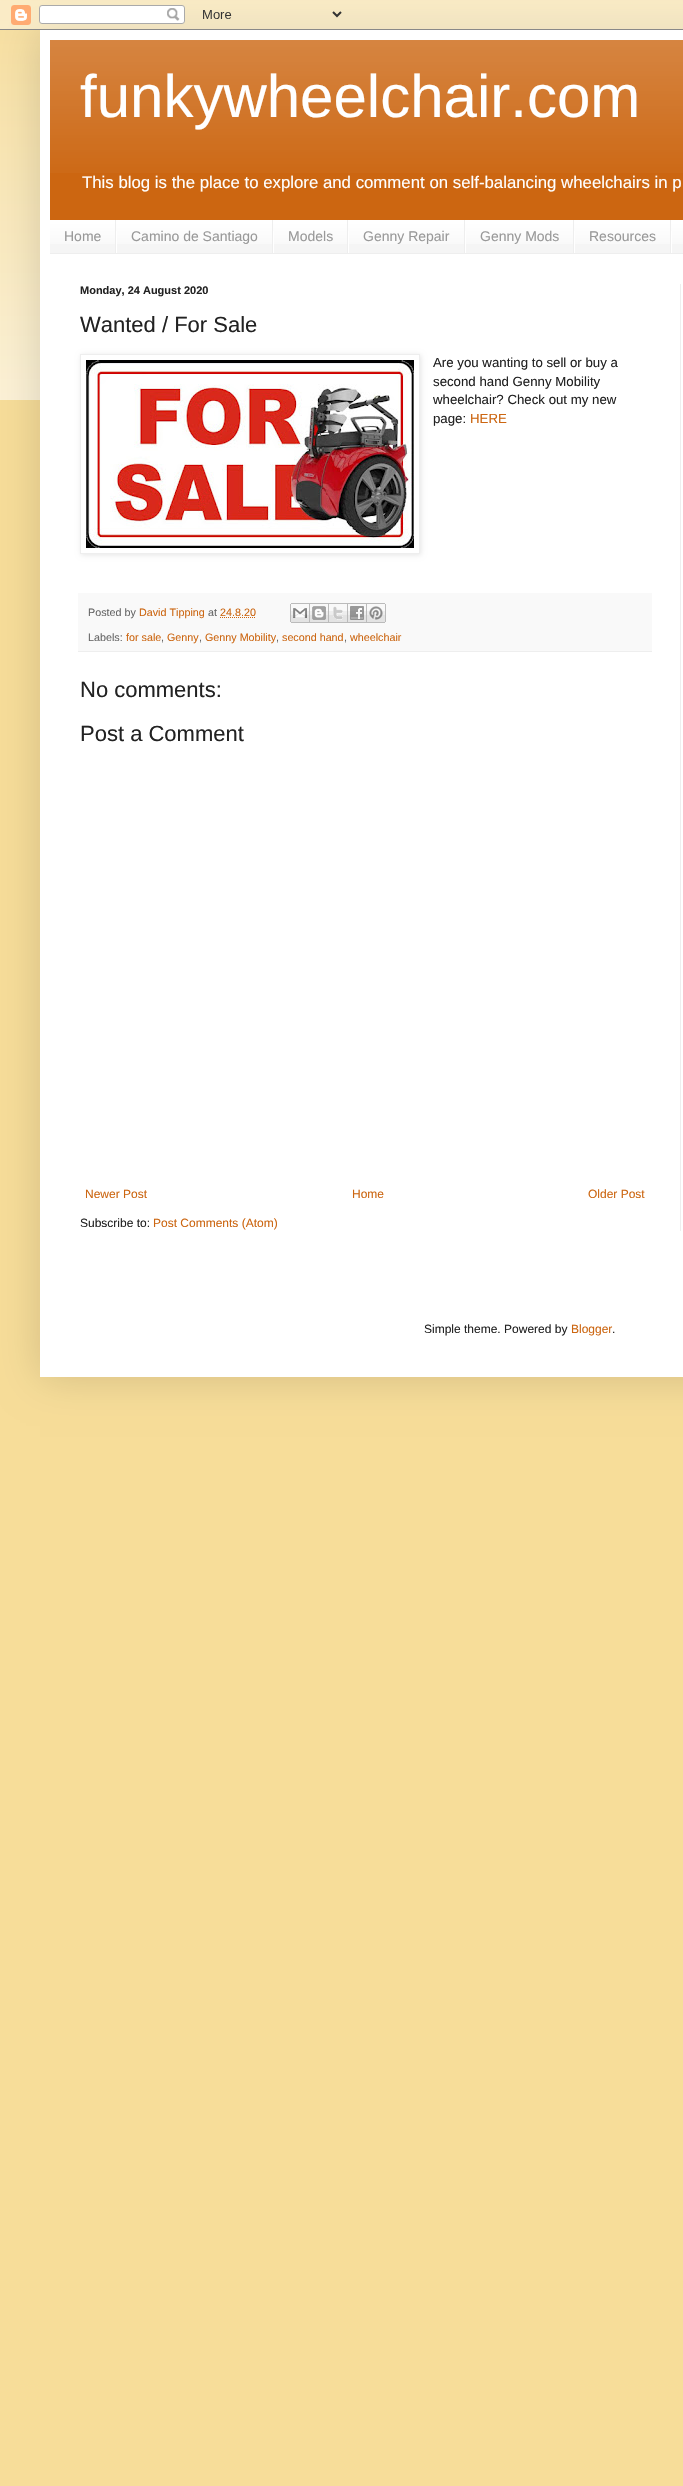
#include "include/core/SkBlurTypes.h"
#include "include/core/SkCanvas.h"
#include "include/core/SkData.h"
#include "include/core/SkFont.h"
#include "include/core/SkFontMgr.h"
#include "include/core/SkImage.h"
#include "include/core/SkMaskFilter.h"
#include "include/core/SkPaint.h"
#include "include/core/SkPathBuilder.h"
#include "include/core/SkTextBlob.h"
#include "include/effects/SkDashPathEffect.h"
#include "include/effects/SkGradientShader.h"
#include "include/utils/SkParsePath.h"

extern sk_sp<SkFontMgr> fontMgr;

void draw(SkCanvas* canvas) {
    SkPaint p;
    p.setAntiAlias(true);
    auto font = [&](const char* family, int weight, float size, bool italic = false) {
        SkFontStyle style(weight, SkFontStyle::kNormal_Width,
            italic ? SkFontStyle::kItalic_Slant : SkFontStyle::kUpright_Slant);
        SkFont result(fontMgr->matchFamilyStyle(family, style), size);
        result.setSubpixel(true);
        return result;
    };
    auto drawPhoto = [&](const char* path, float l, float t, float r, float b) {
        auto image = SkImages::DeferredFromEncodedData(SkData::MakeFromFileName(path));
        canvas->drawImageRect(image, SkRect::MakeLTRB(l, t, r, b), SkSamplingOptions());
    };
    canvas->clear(0xFFF7DD99);
    drawPhoto("media/1.png", 0, 0, 683, 400);
    p.setColor(0x26000000);
    p.setMaskFilter(SkMaskFilter::MakeBlur(kNormal_SkBlurStyle, 20));
    canvas->drawRect(SkRect::MakeLTRB(40, 30, 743, 1377), p);
    p.setMaskFilter(nullptr);
    drawPhoto("media/2.png", 0, 0, 683, 30);
    p.setColor(0xFFFFFFFF);
    canvas->drawRect(SkRect::MakeLTRB(40, 30, 683, 1377), p);
    p.setColor(0xFFCC6611);
    canvas->drawRect(SkRect::MakeLTRB(50, 40, 683, 220), p);
    drawPhoto("media/3.png", 50, 40, 683, 173);
    auto font1 = font("Liberation Sans", 400, 60);
    p.setColor(0xFFFFFFFF);
    canvas->drawString("funkywheelchair.com", 80, 117, font1, p);
    auto font2 = font("Liberation Sans", 400, 16.8f);
    canvas->drawString("This blog is the place to explore and comment on self-balancing wheelchairs in p", 82, 188, font2, p);
    p.setColor(0xFFF5F5F5);
    canvas->drawRect(SkRect::MakeLTRB(50, 221, 683, 253), p);
    drawPhoto("media/4.png", 50, 220, 683, 244);
    p.setColor(0xFFEEEEEE);
    canvas->drawRect(SkRect::MakeLTRB(50, 253, 683, 254), p);
    canvas->drawRect(SkRect::MakeLTRB(115, 220, 116, 253), p);
    auto font3 = font("Liberation Sans", 400, 14);
    p.setColor(0xFF999999);
    canvas->drawString("Home", 64, 241, font3, p);
    p.setColor(0xFFEEEEEE);
    canvas->drawRect(SkRect::MakeLTRB(272, 220, 273, 253), p);
    p.setColor(0xFFFFFFFF);
    canvas->drawRect(SkRect::MakeLTRB(116, 231, 117, 253), p);
    p.setColor(0xFF999999);
    canvas->drawString("Camino de Santiago", 131, 241, font3, p);
    p.setColor(0xFFEEEEEE);
    canvas->drawRect(SkRect::MakeLTRB(347, 220, 348, 253), p);
    p.setColor(0xFFFFFFFF);
    canvas->drawRect(SkRect::MakeLTRB(273, 231, 274, 253), p);
    p.setColor(0xFF999999);
    canvas->drawString("Models", 288, 241, font3, p);
    p.setColor(0xFFEEEEEE);
    canvas->drawRect(SkRect::MakeLTRB(464, 220, 465, 253), p);
    p.setColor(0xFFFFFFFF);
    canvas->drawRect(SkRect::MakeLTRB(348, 231, 349, 253), p);
    p.setColor(0xFF999999);
    canvas->drawString("Genny Repair", 363, 241, font3, p);
    p.setColor(0xFFEEEEEE);
    canvas->drawRect(SkRect::MakeLTRB(573, 220, 574, 253), p);
    p.setColor(0xFFFFFFFF);
    canvas->drawRect(SkRect::MakeLTRB(465, 231, 466, 253), p);
    p.setColor(0xFF999999);
    canvas->drawString("Genny Mods", 480, 241, font3, p);
    p.setColor(0xFFEEEEEE);
    canvas->drawRect(SkRect::MakeLTRB(670, 220, 671, 253), p);
    p.setColor(0xFFFFFFFF);
    canvas->drawRect(SkRect::MakeLTRB(574, 231, 575, 253), p);
    p.setColor(0xFF999999);
    canvas->drawString("Resources", 589, 241, font3, p);
    p.setColor(0xFFFFFFFF);
    canvas->drawRect(SkRect::MakeLTRB(671, 231, 672, 253), p);
    auto font4 = font("Liberation Sans", 700, 11);
    p.setColor(0xFF222222);
    canvas->drawString("Monday, 24 August 2020", 80, 294, font4, p);
    auto font5 = font("Liberation Sans", 400, 22);
    canvas->drawString("Wanted / For Sale", 80, 332, font5, p);
    canvas->save();
    canvas->clipPath(SkPathBuilder(SkPathFillType::kEvenOdd).moveTo(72, 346).lineTo(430, 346).lineTo(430, 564).lineTo(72, 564).close().moveTo(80, 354).lineTo(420, 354).lineTo(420, 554).lineTo(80, 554).close().detach(), true);
    p.setColor(0x1A000000);
    p.setMaskFilter(SkMaskFilter::MakeBlur(kNormal_SkBlurStyle, 2.5f));
    canvas->drawRect(SkRect::MakeLTRB(81, 355, 421, 555), p);
    p.setMaskFilter(nullptr);
    canvas->restore();
    p.setStyle(SkPaint::kStroke_Style);
    p.setStrokeWidth(1);
    p.setColor(0xFFEEEEEE);
    canvas->drawRect(SkRect::MakeLTRB(80.5f, 354.5f, 419.5f, 553.5f), p);
    drawPhoto("media/5.png", 86, 360, 414, 548);
    auto font6 = font("Liberation Sans", 400, 13.25f);
    p.setStyle(SkPaint::kFill_Style);
    p.setColor(0xFF222222);
    {
        const struct { const char* s; float x, y; } items[] = {
            {"Are you wanting to sell or buy a", 433, 367},
            {"second hand Genny Mobility", 433, 386},
            {"wheelchair? Check out my new", 433, 404},
            {"page:", 433, 423},
        };
        for (auto [s, x, y] : items) {
            canvas->drawString(s, x, y, font6, p);
        }
    }
    p.setColor(0xFFCC6611);
    canvas->drawString("HERE", 470, 423, font6, p);
    p.setColor(0xFFF9F9F9);
    canvas->drawRect(SkRect::MakeLTRB(78, 593, 652, 651), p);
    p.setColor(0xFFEEEEEE);
    canvas->drawRect(SkRect::MakeLTRB(78, 651, 652, 652), p);
    auto font7 = font("Liberation Sans", 400, 10.75f);
    p.setColor(0xFF666666);
    canvas->drawString("Posted by", 88, 616, font7, p);
    p.setColor(0xFFCC6611);
    canvas->drawString("David Tipping", 139, 616, font7, p);
    p.setColor(0xFF666666);
    canvas->drawString("at", 208, 616, font7, p);
    p.setColor(0xFFCC6611);
    canvas->drawString("24.8.20", 220, 616, font7, p);
    p.setStyle(SkPaint::kStroke_Style);
    p.setPathEffect(SkDashPathEffect::Make({{1, 1}}, 0));
    canvas->drawPath(SkPathBuilder().moveTo(220, 617.5f).lineTo(256, 617.5f).detach(), p);
    p.setPathEffect(nullptr);
    drawPhoto("media/6.png", 290, 603, 310, 623);
    drawPhoto("media/7.png", 310, 603, 329, 623);
    drawPhoto("media/8.png", 329, 603, 348, 623);
    drawPhoto("media/9.png", 348, 603, 367, 623);
    drawPhoto("media/10.png", 367, 603, 386, 623);
    p.setStyle(SkPaint::kFill_Style);
    p.setColor(0xFF666666);
    canvas->drawString("Labels:", 88, 641, font7, p);
    p.setColor(0xFFCC6611);
    canvas->drawString("for sale", 126, 641, font7, p);
    p.setColor(0xFF666666);
    canvas->drawString(",", 161, 641, font7, p);
    p.setColor(0xFFCC6611);
    canvas->drawString("Genny", 167, 641, font7, p);
    p.setColor(0xFF666666);
    canvas->drawString(",", 199, 641, font7, p);
    p.setColor(0xFFCC6611);
    canvas->drawString("Genny Mobility", 205, 641, font7, p);
    p.setColor(0xFF666666);
    canvas->drawString(",", 276, 641, font7, p);
    p.setColor(0xFFCC6611);
    canvas->drawString("second hand", 282, 641, font7, p);
    p.setColor(0xFF666666);
    canvas->drawString(",", 344, 641, font7, p);
    p.setColor(0xFFCC6611);
    canvas->drawString("wheelchair", 350, 641, font7, p);
    p.setColor(0xFF222222);
    canvas->drawString("No comments:", 80, 697, font5, p);
    canvas->drawString("Post a Comment", 80, 741, font5, p);
    auto font8 = font("Liberation Sans", 400, 12);
    p.setColor(0xFFCC6611);
    {
        const struct { const char* s; float x, y; } items[] = {
            {"Newer Post", 85, 1198},
            {"Home", 352, 1198},
            {"Older Post", 588, 1198},
        };
        for (auto [s, x, y] : items) {
            canvas->drawString(s, x, y, font8, p);
        }
    }
    p.setColor(0xFF222222);
    canvas->drawString("Subscribe to:", 80, 1227, font8, p);
    p.setColor(0xFFCC6611);
    canvas->drawString("Post Comments (Atom)", 153, 1227, font8, p);
    p.setColor(0xFFEEEEEE);
    canvas->drawRect(SkRect::MakeLTRB(680, 284, 681, 1231), p);
    p.setColor(0xFF222222);
    canvas->drawString("Simple theme. Powered by", 424, 1333, font8, p);
    p.setColor(0xFFCC6611);
    canvas->drawString("Blogger", 571, 1333, font8, p);
    p.setColor(0xFF222222);
    canvas->drawString(".", 612, 1333, font8, p);
}
